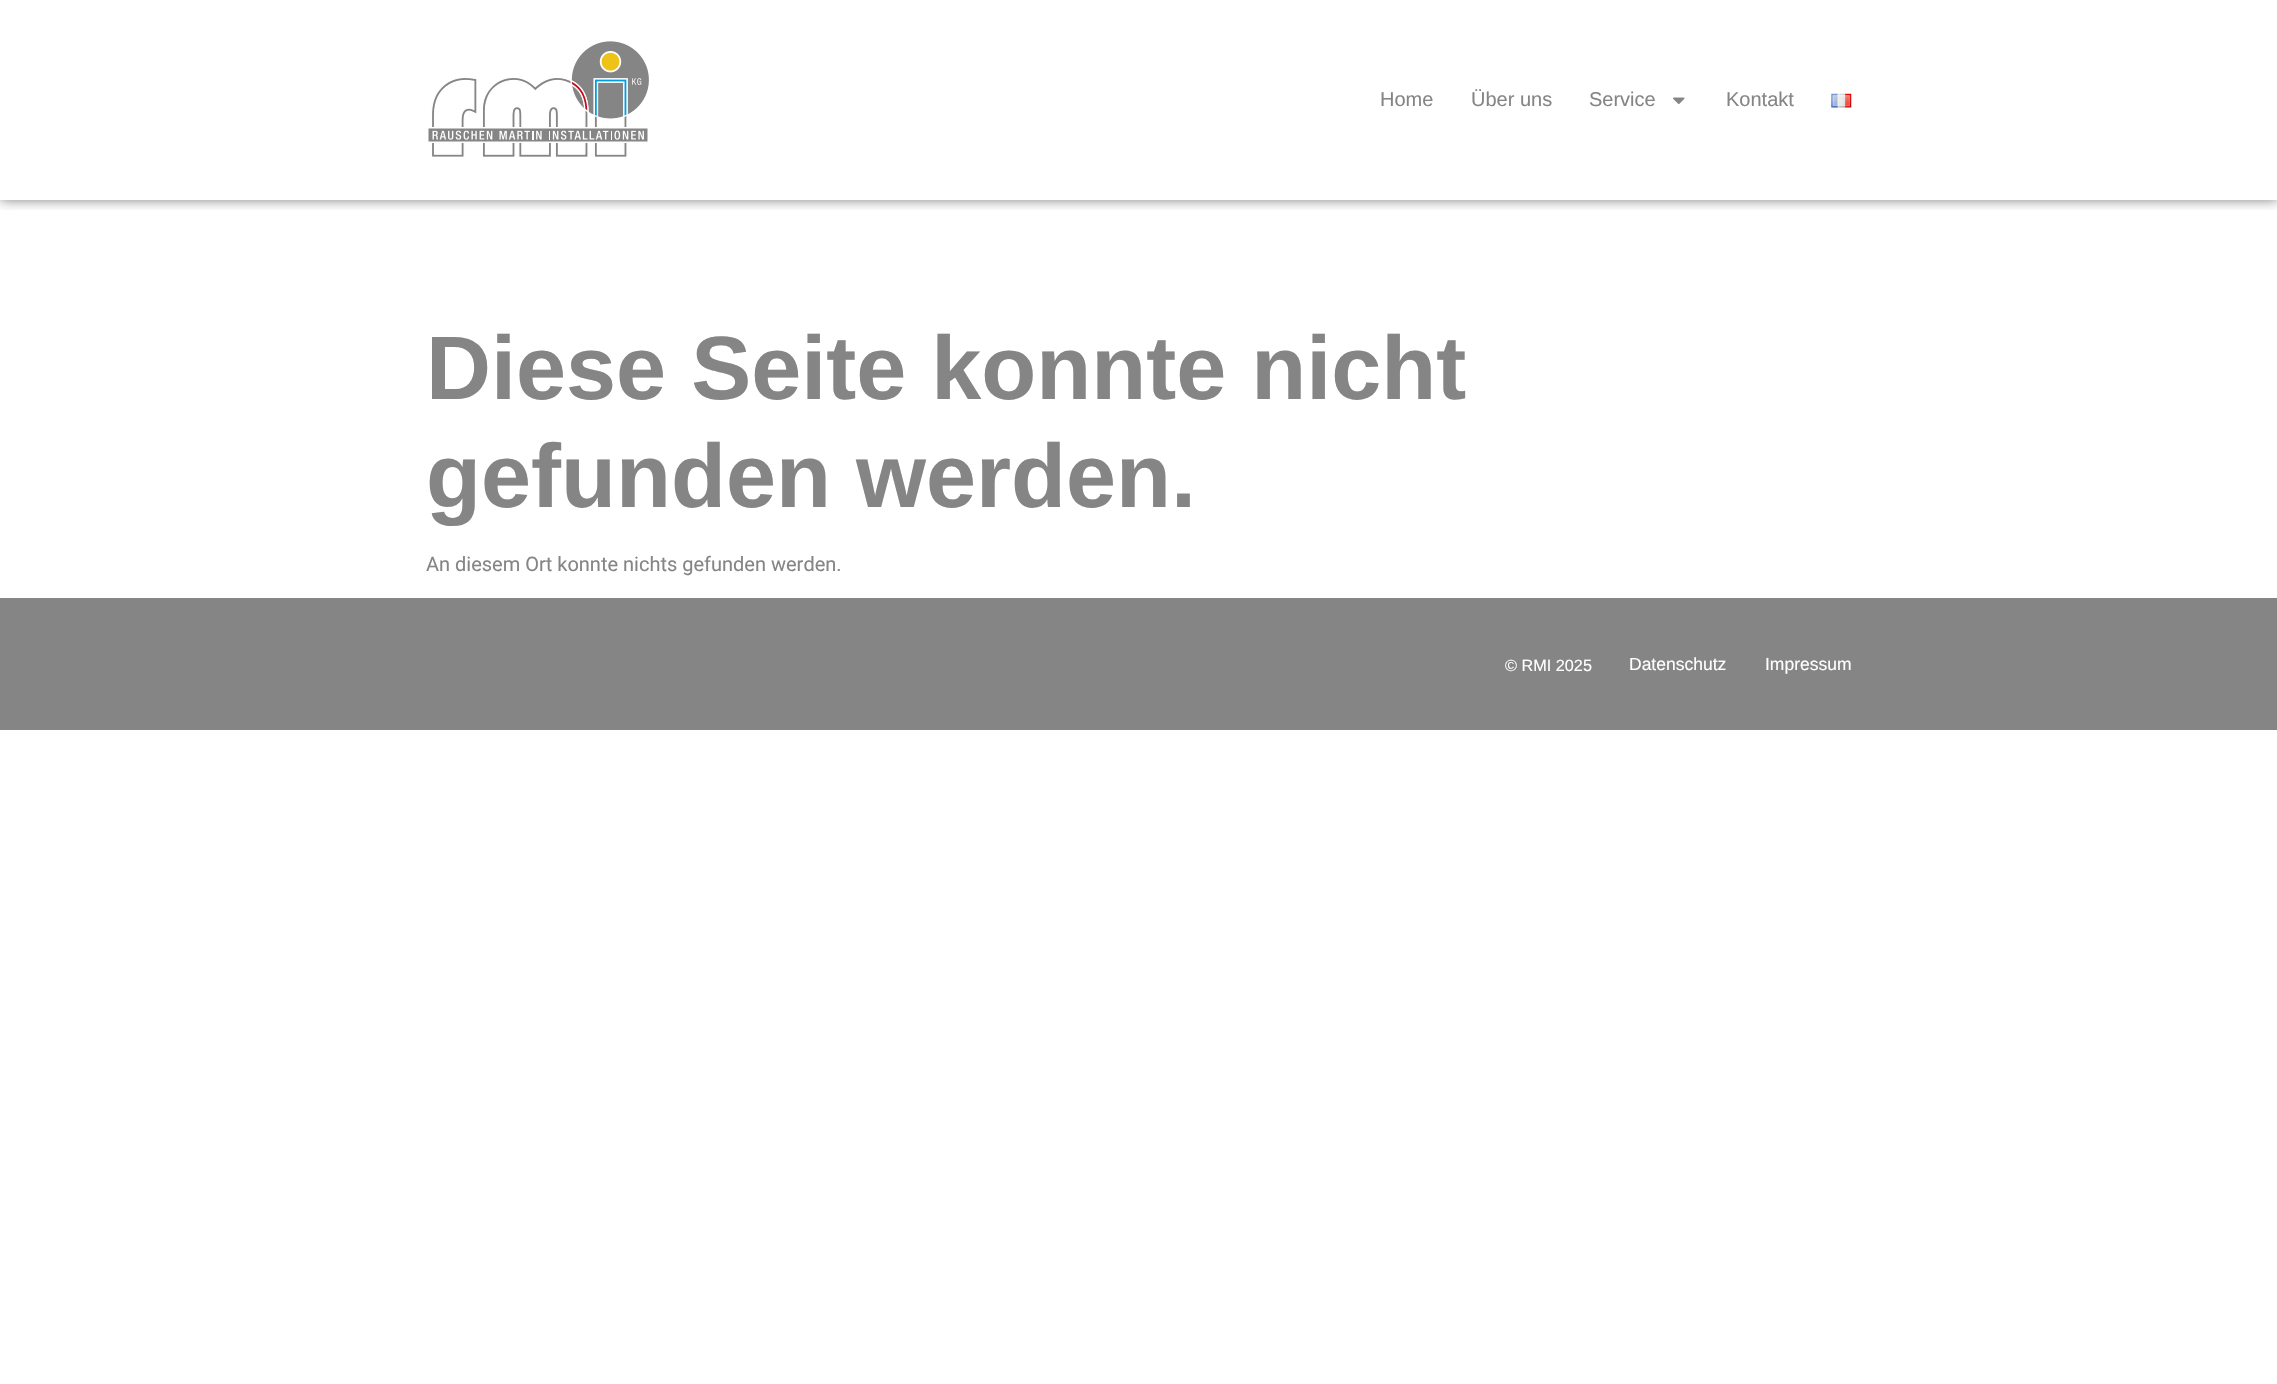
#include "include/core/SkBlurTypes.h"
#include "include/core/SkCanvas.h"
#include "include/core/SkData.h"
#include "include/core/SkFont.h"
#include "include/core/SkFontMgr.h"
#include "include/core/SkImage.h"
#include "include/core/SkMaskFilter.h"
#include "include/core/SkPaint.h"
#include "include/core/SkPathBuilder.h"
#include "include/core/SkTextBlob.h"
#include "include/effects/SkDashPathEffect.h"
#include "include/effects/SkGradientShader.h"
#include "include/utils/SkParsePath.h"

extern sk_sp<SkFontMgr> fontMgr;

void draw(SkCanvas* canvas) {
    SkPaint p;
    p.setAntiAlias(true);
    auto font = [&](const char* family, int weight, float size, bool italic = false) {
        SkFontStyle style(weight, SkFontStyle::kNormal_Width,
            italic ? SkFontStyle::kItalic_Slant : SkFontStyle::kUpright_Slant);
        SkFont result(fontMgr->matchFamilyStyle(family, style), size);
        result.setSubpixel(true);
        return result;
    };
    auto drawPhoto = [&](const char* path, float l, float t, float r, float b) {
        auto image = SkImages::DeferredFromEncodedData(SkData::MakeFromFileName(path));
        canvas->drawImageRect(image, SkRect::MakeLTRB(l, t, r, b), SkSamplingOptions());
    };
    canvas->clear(0xFFFFFFFF);
    canvas->save();
    canvas->clipRect(SkRect::MakeLTRB(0, 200, 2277, 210));
    p.setColor(0x80000000);
    p.setMaskFilter(SkMaskFilter::MakeBlur(kNormal_SkBlurStyle, 6));
    canvas->drawRect(SkRect::MakeLTRB(0, 0, 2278, 200), p);
    p.setMaskFilter(nullptr);
    canvas->restore();
    drawPhoto("media/1.png", 428, 41, 649, 157);
    auto font1 = font("Liberation Sans", 400, 20);
    p.setColor(0xFF868585);
    {
        const struct { const char* s; float x, y; } items[] = {
            {"Home", 1380, 106},
            {"Über uns", 1471, 106},
            {"Service", 1589, 106},
        };
        for (auto [s, x, y] : items) {
            canvas->drawString(s, x, y, font1, p);
        }
    }
    drawPhoto("media/2.png", 1673, 97, 1685, 104);
    canvas->drawString("Kontakt", 1726, 106, font1, p);
    drawPhoto("media/3.png", 1831, 93, 1852, 108);
    auto font2 = font("Liberation Sans", 700, 90);
    canvas->drawString("Diese Seite konnte nicht", 426, 399, font2, p);
    canvas->drawString("gefunden werden.", 426, 507, font2, p);
    auto font3 = font("Roboto", 400, 20);
    canvas->drawString("An diesem Ort konnte nichts gefunden werden.", 426, 571, font3, p);
    canvas->drawRect(SkRect::MakeLTRB(0, 598, 2277, 730), p);
    auto font4 = font("Liberation Sans", 400, 16.25f);
    p.setColor(0xFFFFFFFF);
    canvas->drawString("© RMI 2025", 1505, 671, font4, p);
    auto font5 = font("Liberation Sans", 400, 17.5f);
    canvas->drawString("Datenschutz", 1629, 670, font5, p);
    canvas->drawString("Impressum", 1765, 670, font5, p);
}
